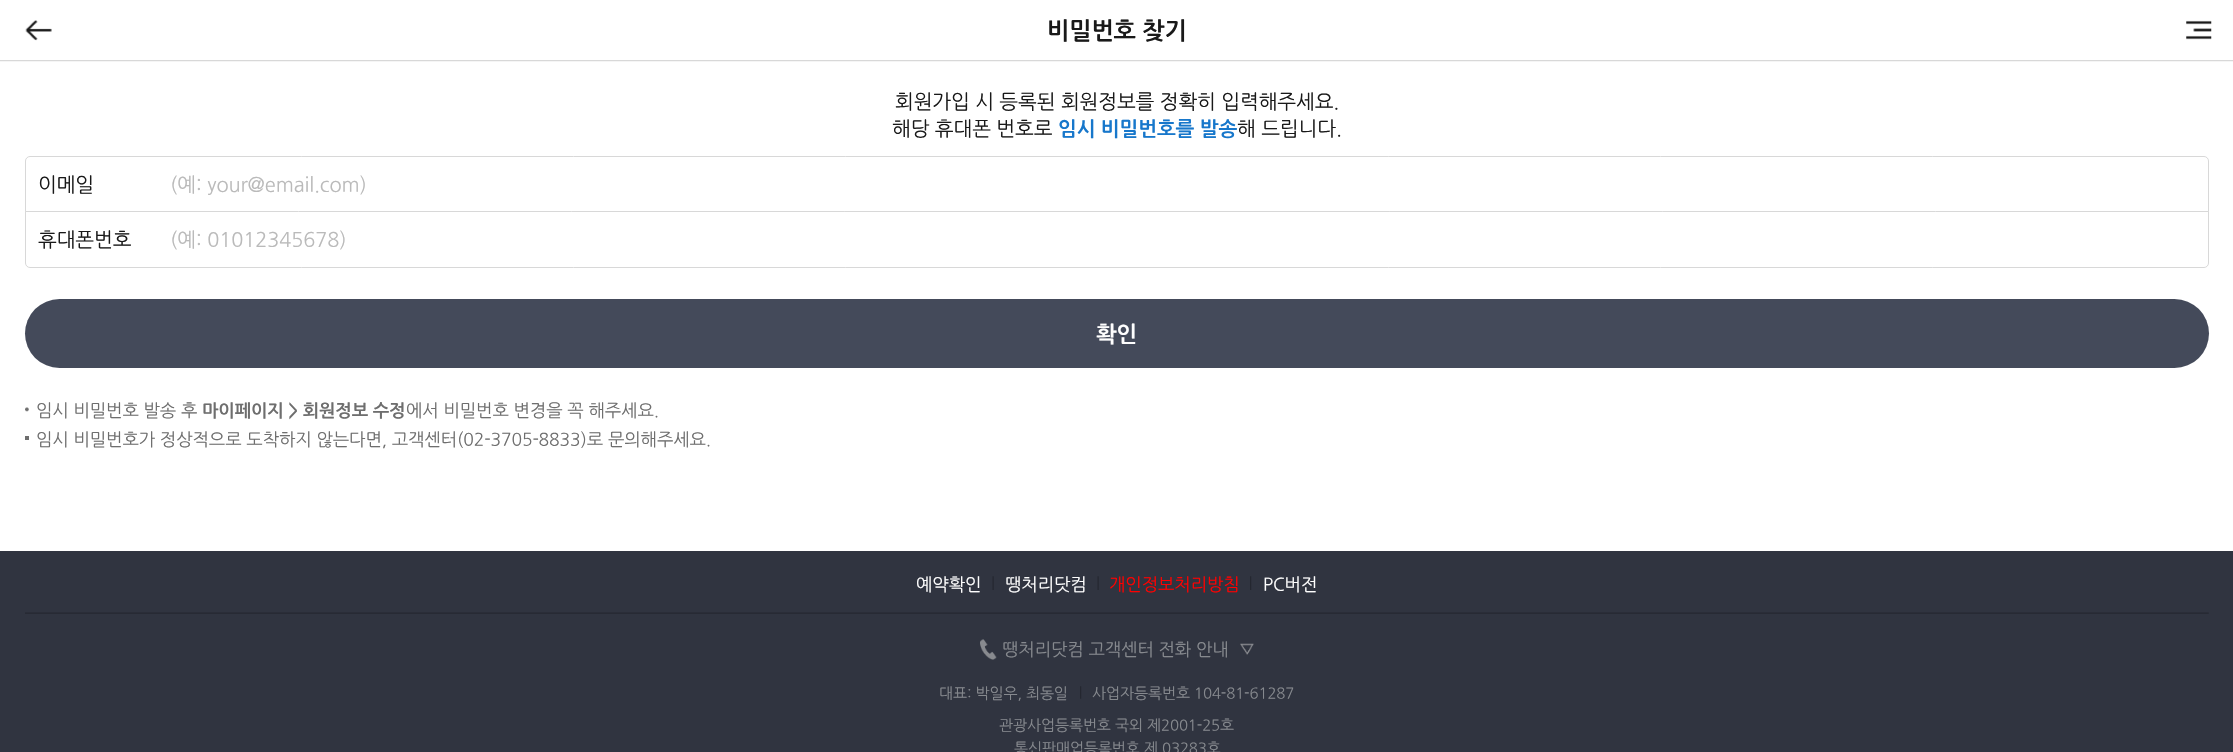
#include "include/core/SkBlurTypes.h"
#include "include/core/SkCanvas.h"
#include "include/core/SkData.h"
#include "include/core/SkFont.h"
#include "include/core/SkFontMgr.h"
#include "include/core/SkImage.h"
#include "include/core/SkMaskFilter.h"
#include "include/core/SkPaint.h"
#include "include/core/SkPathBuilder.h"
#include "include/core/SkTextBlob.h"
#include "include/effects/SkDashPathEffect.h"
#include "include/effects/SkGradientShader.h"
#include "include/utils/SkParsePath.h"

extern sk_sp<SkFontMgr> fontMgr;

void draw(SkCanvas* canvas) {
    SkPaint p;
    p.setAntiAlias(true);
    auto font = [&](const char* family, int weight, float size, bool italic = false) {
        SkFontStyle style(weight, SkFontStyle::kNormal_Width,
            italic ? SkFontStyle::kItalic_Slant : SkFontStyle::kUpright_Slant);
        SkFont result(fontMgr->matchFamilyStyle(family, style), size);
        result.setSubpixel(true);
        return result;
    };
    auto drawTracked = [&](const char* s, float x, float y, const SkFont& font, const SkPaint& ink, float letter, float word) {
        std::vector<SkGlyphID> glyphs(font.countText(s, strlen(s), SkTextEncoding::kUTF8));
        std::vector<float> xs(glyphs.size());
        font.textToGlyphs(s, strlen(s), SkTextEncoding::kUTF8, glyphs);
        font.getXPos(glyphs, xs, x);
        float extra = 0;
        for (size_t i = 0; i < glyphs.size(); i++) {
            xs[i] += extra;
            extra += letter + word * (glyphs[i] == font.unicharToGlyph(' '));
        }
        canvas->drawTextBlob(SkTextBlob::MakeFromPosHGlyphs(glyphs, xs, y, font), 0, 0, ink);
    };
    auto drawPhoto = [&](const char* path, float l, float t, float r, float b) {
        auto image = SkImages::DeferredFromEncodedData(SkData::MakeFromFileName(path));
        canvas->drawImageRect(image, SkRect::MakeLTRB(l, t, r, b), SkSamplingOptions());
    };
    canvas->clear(0xFFFFFFFF);
    drawPhoto("media/1.png", 0, 60, 2233, 62);
    drawPhoto("media/2.png", 25, 20, 52, 41);
    auto font1 = font("NanumGothic", 700, 23.75f);
    p.setColor(0xFF191919);
    drawTracked("비밀번호 찾기", 1047, 38, font1, p, -0.12f, 0);
    drawPhoto("media/3.png", 2186, 20, 2212, 40);
    auto font2 = font("NanumGothic", 400, 20);
    drawTracked("회원가입 시 등록된 회원정보를 정확히 입력해주세요.", 895, 108, font2, p, -0.12f, 0);
    drawTracked("해당 휴대폰 번호로", 892, 135, font2, p, -0.12f, 0);
    auto font3 = font("NanumGothic", 700, 20);
    p.setColor(0xFF1777CB);
    drawTracked("임시 비밀번호를 발송", 1058, 135, font3, p, -0.12f, 0);
    p.setColor(0xFF191919);
    drawTracked("해 드립니다.", 1237, 135, font2, p, -0.12f, 0);
    p.setStyle(SkPaint::kStroke_Style);
    p.setStrokeWidth(1);
    p.setColor(0xFFD8D8D8);
    canvas->drawPath(SkPathBuilder().moveTo(30, 156.5f).lineTo(2204, 156.5f).cubicTo(2206.5f, 156.5f, 2208.5f, 158.5f, 2208.5f, 161).lineTo(2208.5f, 212.5f).lineTo(25.5f, 212.5f).lineTo(25.5f, 161).cubicTo(25.5f, 158.5f, 27.5f, 156.5f, 30, 156.5f).close().detach(), p);
    p.setStyle(SkPaint::kFill_Style);
    p.setColor(0xFF191919);
    drawTracked("이메일", 38, 191, font2, p, -0.12f, 0);
    p.setColor(0xFFBABABA);
    drawTracked("(예: your@email.com)", 170, 191, font2, p, -0.12f, 0);
    p.setColor(0xFFFFFFFF);
    canvas->drawPath(SkPathBuilder().moveTo(25.5f, 211.5f).lineTo(2208.5f, 211.5f).lineTo(2208.5f, 263).cubicTo(2208.5f, 265.5f, 2206.5f, 267.5f, 2204, 267.5f).lineTo(30, 267.5f).cubicTo(27.5f, 267.5f, 25.5f, 265.5f, 25.5f, 263).close().detach(), p);
    p.setStyle(SkPaint::kStroke_Style);
    p.setColor(0xFFD8D8D8);
    canvas->drawPath(SkPathBuilder().moveTo(25.5f, 211.5f).lineTo(2208.5f, 211.5f).lineTo(2208.5f, 263).cubicTo(2208.5f, 265.5f, 2206.5f, 267.5f, 2204, 267.5f).lineTo(30, 267.5f).cubicTo(27.5f, 267.5f, 25.5f, 265.5f, 25.5f, 263).close().detach(), p);
    p.setStyle(SkPaint::kFill_Style);
    p.setColor(0xFF191919);
    drawTracked("휴대폰번호", 38, 246, font2, p, -0.12f, 0);
    p.setColor(0xFFBABABA);
    drawTracked("(예: 01012345678)", 170, 246, font2, p, -0.12f, 0);
    p.setColor(0xFF444A5A);
    canvas->drawRoundRect(SkRect::MakeLTRB(25, 299, 2209, 368), 34.5f, 34.5f, p);
    auto font4 = font("NanumGothic", 700, 22);
    p.setColor(0xFFFEFEFE);
    drawTracked("확인", 1096, 341, font4, p, -0.12f, 0);
    drawPhoto("media/4.png", 25, 407, 29, 412);
    auto font5 = font("NanumGothic", 400, 17.5f);
    p.setColor(0xFF6E6E6E);
    drawTracked("임시 비밀번호 발송 후", 36, 416, font5, p, -0.12f, 0);
    auto font6 = font("NanumGothic", 700, 17.5f);
    drawTracked("마이페이지 > 회원정보 수정", 202, 416, font6, p, -0.12f, 0);
    drawTracked("에서 비밀번호 변경을 꼭 해주세요.", 406, 416, font5, p, -0.12f, 0);
    canvas->drawRect(SkRect::MakeLTRB(25, 436, 29, 440), p);
    drawTracked("임시 비밀번호가 정상적으로 도착하지 않는다면, 고객센터(02-3705-8833)로 문의해주세요.", 36, 445, font5, p, -0.12f, 0);
    p.setColor(0xFF303440);
    canvas->drawRect(SkRect::MakeLTRB(0, 551, 2233, 752), p);
    p.setColor(0xFFFEFEFE);
    drawTracked("예약확인", 916, 590, font5, p, -0.12f, 0);
    drawPhoto("media/5.png", 992, 576, 994, 590);
    drawTracked("땡처리닷컴", 1005, 590, font5, p, -0.12f, 0);
    drawPhoto("media/5.png", 1097, 576, 1099, 590);
    p.setColor(0xFFFF0000);
    drawTracked("개인정보처리방침", 1109, 590, font5, p, -0.12f, 0);
    drawPhoto("media/6.png", 1250, 576, 1252, 590);
    p.setColor(0xFFFEFEFE);
    drawTracked("PC버전", 1263, 590, font5, p, -0.12f, 0);
    drawPhoto("media/7.png", 25, 612, 2209, 614);
    drawPhoto("media/8.png", 980, 639, 997, 660);
    drawPhoto("media/9.png", 1240, 643, 1254, 655);
    p.setColor(0xFF86898E);
    drawTracked("땡처리닷컴 고객센터 전화 안내", 1002, 655, font5, p, -0.12f, 0);
    auto font7 = font("NanumGothic", 400, 15);
    drawTracked("대표: 박일우, 최동일", 939, 698, font7, p, -0.12f, 0);
    drawPhoto("media/10.png", 1080, 686, 1082, 699);
    {
        const struct { const char* s; float x, y; } items[] = {
            {"사업자등록번호 104-81-61287", 1092, 698},
            {"관광사업등록번호 국외 제2001-25호", 999, 730},
            {"통신판매업등록번호 제 03283호", 1014, 753},
        };
        for (auto [s, x, y] : items) {
            drawTracked(s, x, y, font7, p, -0.12f, 0);
        }
    }
}
